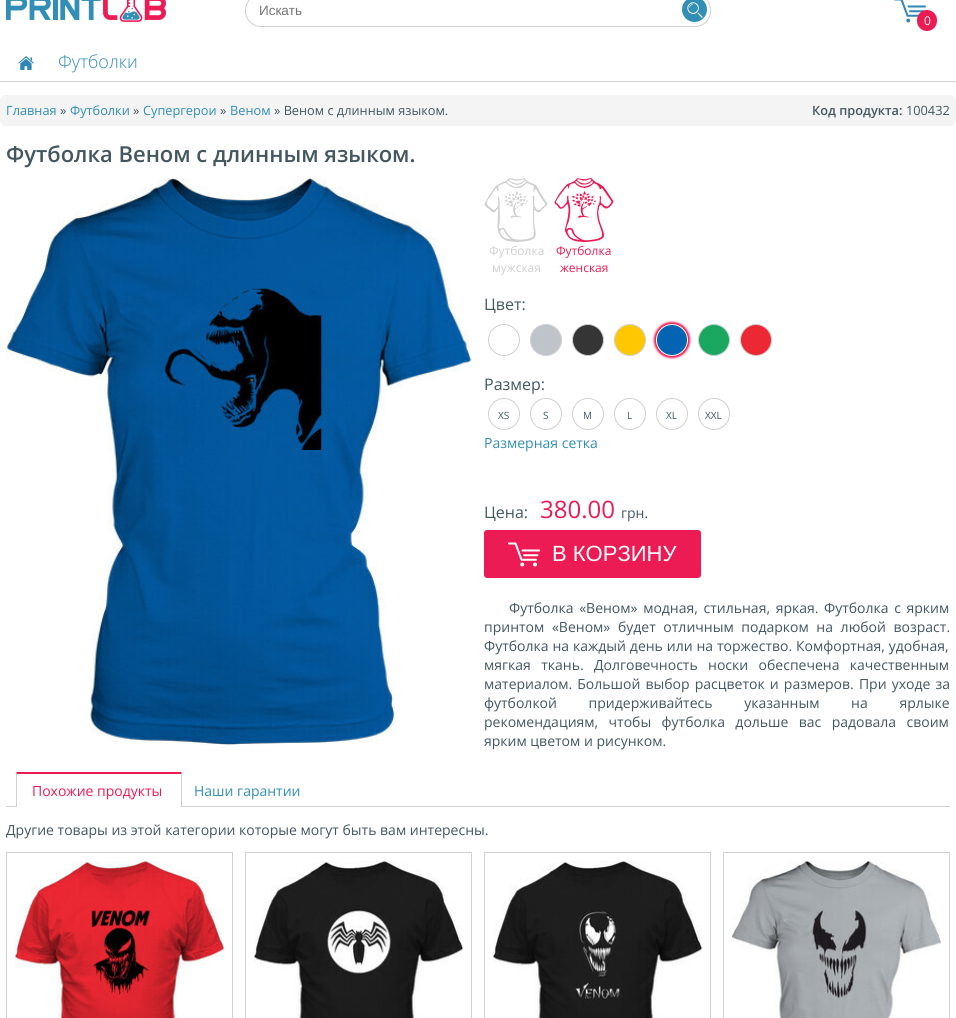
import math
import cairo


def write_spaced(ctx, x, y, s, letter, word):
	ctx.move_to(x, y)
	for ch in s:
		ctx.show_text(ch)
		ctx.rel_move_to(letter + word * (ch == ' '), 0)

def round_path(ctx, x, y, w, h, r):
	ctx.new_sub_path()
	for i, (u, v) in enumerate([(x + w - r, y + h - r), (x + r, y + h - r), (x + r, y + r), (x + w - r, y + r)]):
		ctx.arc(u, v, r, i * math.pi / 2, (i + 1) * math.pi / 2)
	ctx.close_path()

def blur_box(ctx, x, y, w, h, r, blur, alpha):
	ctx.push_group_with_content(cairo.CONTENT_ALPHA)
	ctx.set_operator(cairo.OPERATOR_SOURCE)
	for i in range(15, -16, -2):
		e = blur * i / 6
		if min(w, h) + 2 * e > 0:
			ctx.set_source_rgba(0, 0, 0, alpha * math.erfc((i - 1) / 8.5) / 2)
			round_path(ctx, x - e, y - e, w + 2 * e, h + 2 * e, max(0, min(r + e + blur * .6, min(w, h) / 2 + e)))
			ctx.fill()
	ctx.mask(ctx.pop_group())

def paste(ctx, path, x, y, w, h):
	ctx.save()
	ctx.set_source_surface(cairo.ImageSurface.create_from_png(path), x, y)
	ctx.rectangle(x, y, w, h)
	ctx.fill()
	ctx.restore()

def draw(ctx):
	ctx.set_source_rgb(1, 1, 1)
	ctx.paint()
	ctx.set_source_rgb(0.816, 0.816, 0.816)
	ctx.rectangle(0, 81, 956, 1)
	ctx.fill()
	paste(ctx, 'media/1.png', 6, 0, 160, 22)
	round_path(ctx, 245.5, -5.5, 465, 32, 15.5)
	ctx.set_line_width(1)
	ctx.stroke()
	ctx.select_font_face('Liberation Sans')
	ctx.set_font_size(13.5)
	ctx.set_source_rgb(0.459, 0.459, 0.459)
	ctx.move_to(259, 15)
	ctx.show_text('Искать')
	ctx.set_source_rgb(0.188, 0.557, 0.718)
	ctx.new_path()
	ctx.arc(694.5, 9.5, 12.5, 0, 2 * math.pi)
	ctx.fill()
	paste(ctx, 'media/2.png', 687, 2, 16, 16)
	paste(ctx, 'media/3.png', 894, 0, 32, 23)
	ctx.set_source_rgb(0.925, 0.106, 0.329)
	round_path(ctx, 917, 10, 20, 21, 10)
	ctx.fill()
	ctx.select_font_face('Open Sans')
	ctx.set_font_size(12)
	ctx.set_source_rgb(1, 1, 1)
	ctx.move_to(924, 25)
	ctx.show_text('0')
	paste(ctx, 'media/4.png', 18, 56, 16, 14)
	ctx.select_font_face('Open Sans Light')
	ctx.set_font_size(18)
	ctx.set_source_rgb(0.188, 0.557, 0.718)
	ctx.move_to(58, 68)
	ctx.show_text('Футболки')
	ctx.set_source_rgb(0.957, 0.957, 0.957)
	round_path(ctx, 0, 95, 956, 31, 6)
	ctx.fill()
	ctx.select_font_face('Open Sans')
	ctx.set_font_size(12.75)
	ctx.set_source_rgb(0.188, 0.557, 0.718)
	ctx.move_to(6, 115)
	ctx.show_text('Главная')
	ctx.set_source_rgb(0.263, 0.341, 0.38)
	ctx.move_to(60, 115)
	ctx.show_text('»')
	ctx.set_source_rgb(0.188, 0.557, 0.718)
	ctx.move_to(70, 115)
	ctx.show_text('Футболки')
	ctx.set_source_rgb(0.263, 0.341, 0.38)
	ctx.move_to(133, 115)
	ctx.show_text('»')
	ctx.set_source_rgb(0.188, 0.557, 0.718)
	ctx.move_to(143, 115)
	ctx.show_text('Супергерои')
	ctx.set_source_rgb(0.263, 0.341, 0.38)
	ctx.move_to(220, 115)
	ctx.show_text('»')
	ctx.set_source_rgb(0.188, 0.557, 0.718)
	ctx.move_to(230, 115)
	ctx.show_text('Веном')
	ctx.set_source_rgb(0.263, 0.341, 0.38)
	ctx.move_to(274, 115)
	ctx.show_text('» Веном с длинным языком.')
	ctx.select_font_face('Open Sans SemiBold')
	ctx.move_to(812, 115)
	ctx.show_text('Код продукта:')
	ctx.select_font_face('Open Sans')
	ctx.move_to(906, 115)
	ctx.show_text('100432')
	ctx.select_font_face('Open Sans SemiBold')
	ctx.set_font_size(22)
	ctx.move_to(6, 162)
	ctx.show_text('Футболка Веном с длинным языком.')
	paste(ctx, 'media/5.png', 6, 178, 466, 567)
	paste(ctx, 'media/6.png', 484, 178, 64, 64)
	ctx.select_font_face('Open Sans')
	ctx.set_font_size(12)
	ctx.set_source_rgb(0.816, 0.816, 0.816)
	ctx.move_to(489, 255)
	ctx.show_text('Футболка')
	ctx.move_to(492, 272)
	ctx.show_text('мужская')
	paste(ctx, 'media/7.png', 554, 178, 60, 64)
	ctx.set_source_rgb(0.925, 0.106, 0.329)
	ctx.move_to(556, 255)
	ctx.show_text('Футболка')
	ctx.move_to(560, 272)
	ctx.show_text('женская')
	ctx.set_font_size(16)
	ctx.set_source_rgb(0.263, 0.341, 0.38)
	ctx.move_to(484, 310)
	ctx.show_text('Цвет:')
	ctx.new_path()
	ctx.arc(504, 340, 15.5, 0, 2 * math.pi)
	ctx.set_source_rgb(0.816, 0.816, 0.816)
	ctx.stroke()
	ctx.set_source_rgb(0.749, 0.769, 0.792)
	ctx.arc(546, 340, 15.5, 0, 2 * math.pi)
	ctx.fill_preserve()
	ctx.set_source_rgb(0.816, 0.816, 0.816)
	ctx.stroke()
	ctx.set_source_rgb(0.208, 0.208, 0.208)
	ctx.arc(588, 340, 15.5, 0, 2 * math.pi)
	ctx.fill_preserve()
	ctx.set_source_rgb(0.816, 0.816, 0.816)
	ctx.stroke()
	ctx.set_source_rgb(1, 0.78, 0)
	ctx.arc(630, 340, 15.5, 0, 2 * math.pi)
	ctx.fill_preserve()
	ctx.set_source_rgb(0.816, 0.816, 0.816)
	ctx.stroke()
	ctx.set_source_rgb(0.925, 0.106, 0.329)
	blur_box(ctx, 654, 322, 36, 36, 18, 1, 1)
	ctx.set_source_rgb(0.016, 0.388, 0.702)
	ctx.arc(672, 340, 15.5, 0, 2 * math.pi)
	ctx.fill_preserve()
	ctx.set_source_rgb(1, 1, 1)
	ctx.stroke()
	ctx.set_source_rgb(0.102, 0.655, 0.373)
	ctx.arc(714, 340, 15.5, 0, 2 * math.pi)
	ctx.fill_preserve()
	ctx.set_source_rgb(0.816, 0.816, 0.816)
	ctx.stroke()
	ctx.set_source_rgb(0.925, 0.157, 0.204)
	ctx.arc(756, 340, 15.5, 0, 2 * math.pi)
	ctx.fill_preserve()
	ctx.set_source_rgb(0.816, 0.816, 0.816)
	ctx.stroke()
	ctx.set_source_rgb(0.263, 0.341, 0.38)
	ctx.move_to(484, 390)
	ctx.show_text('Размер:')
	ctx.new_path()
	ctx.arc(504, 414, 15.5, 0, 2 * math.pi)
	ctx.set_source_rgb(0.816, 0.816, 0.816)
	ctx.stroke()
	ctx.set_font_size(10)
	ctx.set_source_rgb(0.263, 0.341, 0.38)
	ctx.move_to(498, 419)
	ctx.show_text('XS')
	ctx.new_path()
	ctx.arc(546, 414, 15.5, 0, 2 * math.pi)
	ctx.set_source_rgb(0.816, 0.816, 0.816)
	ctx.stroke()
	ctx.set_source_rgb(0.263, 0.341, 0.38)
	ctx.move_to(543, 419)
	ctx.show_text('S')
	ctx.new_path()
	ctx.arc(588, 414, 15.5, 0, 2 * math.pi)
	ctx.set_source_rgb(0.816, 0.816, 0.816)
	ctx.stroke()
	ctx.set_source_rgb(0.263, 0.341, 0.38)
	ctx.move_to(583, 419)
	ctx.show_text('M')
	ctx.new_path()
	ctx.arc(630, 414, 15.5, 0, 2 * math.pi)
	ctx.set_source_rgb(0.816, 0.816, 0.816)
	ctx.stroke()
	ctx.set_source_rgb(0.263, 0.341, 0.38)
	ctx.move_to(627, 419)
	ctx.show_text('L')
	ctx.new_path()
	ctx.arc(672, 414, 15.5, 0, 2 * math.pi)
	ctx.set_source_rgb(0.816, 0.816, 0.816)
	ctx.stroke()
	ctx.set_source_rgb(0.263, 0.341, 0.38)
	ctx.move_to(666, 419)
	ctx.show_text('XL')
	ctx.new_path()
	ctx.arc(714, 414, 15.5, 0, 2 * math.pi)
	ctx.set_source_rgb(0.816, 0.816, 0.816)
	ctx.stroke()
	ctx.set_source_rgb(0.263, 0.341, 0.38)
	ctx.move_to(705, 419)
	ctx.show_text('XXL')
	ctx.set_font_size(14)
	ctx.set_source_rgb(0.188, 0.557, 0.718)
	ctx.move_to(484, 448)
	ctx.show_text('Размерная сетка')
	ctx.set_font_size(16)
	ctx.set_source_rgb(0.263, 0.341, 0.38)
	ctx.move_to(484, 518)
	ctx.show_text('Цена:')
	ctx.set_font_size(24)
	ctx.set_source_rgb(0.925, 0.106, 0.329)
	ctx.move_to(540, 518)
	ctx.show_text('380.00')
	ctx.set_font_size(14)
	ctx.set_source_rgb(0.263, 0.341, 0.38)
	ctx.move_to(621, 518)
	ctx.show_text('грн.')
	ctx.set_source_rgb(0.925, 0.106, 0.329)
	round_path(ctx, 484, 530, 217, 48, 3)
	ctx.fill()
	paste(ctx, 'media/8.png', 508, 542, 32, 25)
	ctx.select_font_face('Liberation Sans')
	ctx.set_font_size(22)
	ctx.set_source_rgb(1, 1, 1)
	ctx.move_to(552, 561)
	ctx.show_text('В КОРЗИНУ')
	ctx.select_font_face('Open Sans')
	ctx.set_font_size(14)
	ctx.set_source_rgb(0.263, 0.341, 0.38)
	write_spaced(ctx, 509, 613, 'Футболка «Веном» модная, стильная, яркая. Футболка с ярким', 0, 2)
	write_spaced(ctx, 484, 632, 'принтом «Веном» будет отличным подарком на любой возраст.', 0, 4)
	write_spaced(ctx, 484, 651, 'Футболка на каждый день или на торжество. Комфортная, удобная,', 0, 0.25)
	write_spaced(ctx, 484, 670, 'мягкая ткань. Долговечность носки обеспечена качественным', 0, 6.75)
	write_spaced(ctx, 484, 689, 'материалом. Большой выбор расцветок и размеров. При уходе за', 0, 1.5)
	write_spaced(ctx, 484, 708, 'футболкой придерживайтесь указанным на ярлыке', 0, 28)
	write_spaced(ctx, 484, 727, 'рекомендациям, чтобы футболка дольше вас радовала своим', 0, 6.75)
	ctx.move_to(484, 746)
	ctx.show_text('ярким цветом и рисунком.')
	ctx.set_source_rgb(0.816, 0.816, 0.816)
	ctx.rectangle(6, 806, 944, 1)
	ctx.fill()
	ctx.set_source_rgb(0.925, 0.106, 0.329)
	ctx.move_to(32, 796)
	ctx.show_text('Похожие продукты')
	ctx.set_source_rgb(1, 1, 1)
	ctx.rectangle(16, 806, 166, 1)
	ctx.fill()
	ctx.set_source_rgb(0.925, 0.106, 0.329)
	ctx.new_path()
	ctx.move_to(16, 772)
	ctx.line_to(182, 772)
	ctx.line_to(181, 774)
	ctx.line_to(17, 774)
	ctx.close_path()
	ctx.fill()
	ctx.set_source_rgb(0.816, 0.816, 0.816)
	ctx.new_path()
	ctx.move_to(182, 772)
	ctx.line_to(182, 807)
	ctx.line_to(181, 807)
	ctx.line_to(181, 774)
	ctx.close_path()
	ctx.fill()
	ctx.new_path()
	ctx.move_to(16, 807)
	ctx.line_to(16, 772)
	ctx.line_to(17, 774)
	ctx.line_to(17, 807)
	ctx.close_path()
	ctx.fill()
	ctx.set_source_rgb(0.188, 0.557, 0.718)
	ctx.move_to(194, 796)
	ctx.show_text('Наши гарантии')
	ctx.set_source_rgb(0.263, 0.341, 0.38)
	ctx.move_to(6, 835)
	ctx.show_text('Другие товары из этой категории которые могут быть вам интересны.')
	ctx.rectangle(6.5, 852.5, 226, 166)
	ctx.set_source_rgb(0.816, 0.816, 0.816)
	ctx.stroke()
	paste(ctx, 'media/9.png', 15, 861, 209, 157)
	ctx.rectangle(245.5, 852.5, 226, 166)
	ctx.stroke()
	paste(ctx, 'media/10.png', 254, 861, 209, 157)
	ctx.rectangle(484.5, 852.5, 226, 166)
	ctx.stroke()
	paste(ctx, 'media/11.png', 493, 861, 209, 157)
	ctx.rectangle(723.5, 852.5, 226, 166)
	ctx.stroke()
	paste(ctx, 'media/12.png', 732, 861, 209, 157)


surface = cairo.ImageSurface(cairo.FORMAT_RGB24, 956, 1018)
ctx = cairo.Context(surface)
options = cairo.FontOptions()
options.set_hint_metrics(cairo.HINT_METRICS_OFF)
options.set_hint_style(cairo.HINT_STYLE_NONE)
ctx.set_font_options(options)
ctx.set_miter_limit(4)
draw(ctx)
surface.write_to_png('image.png')
